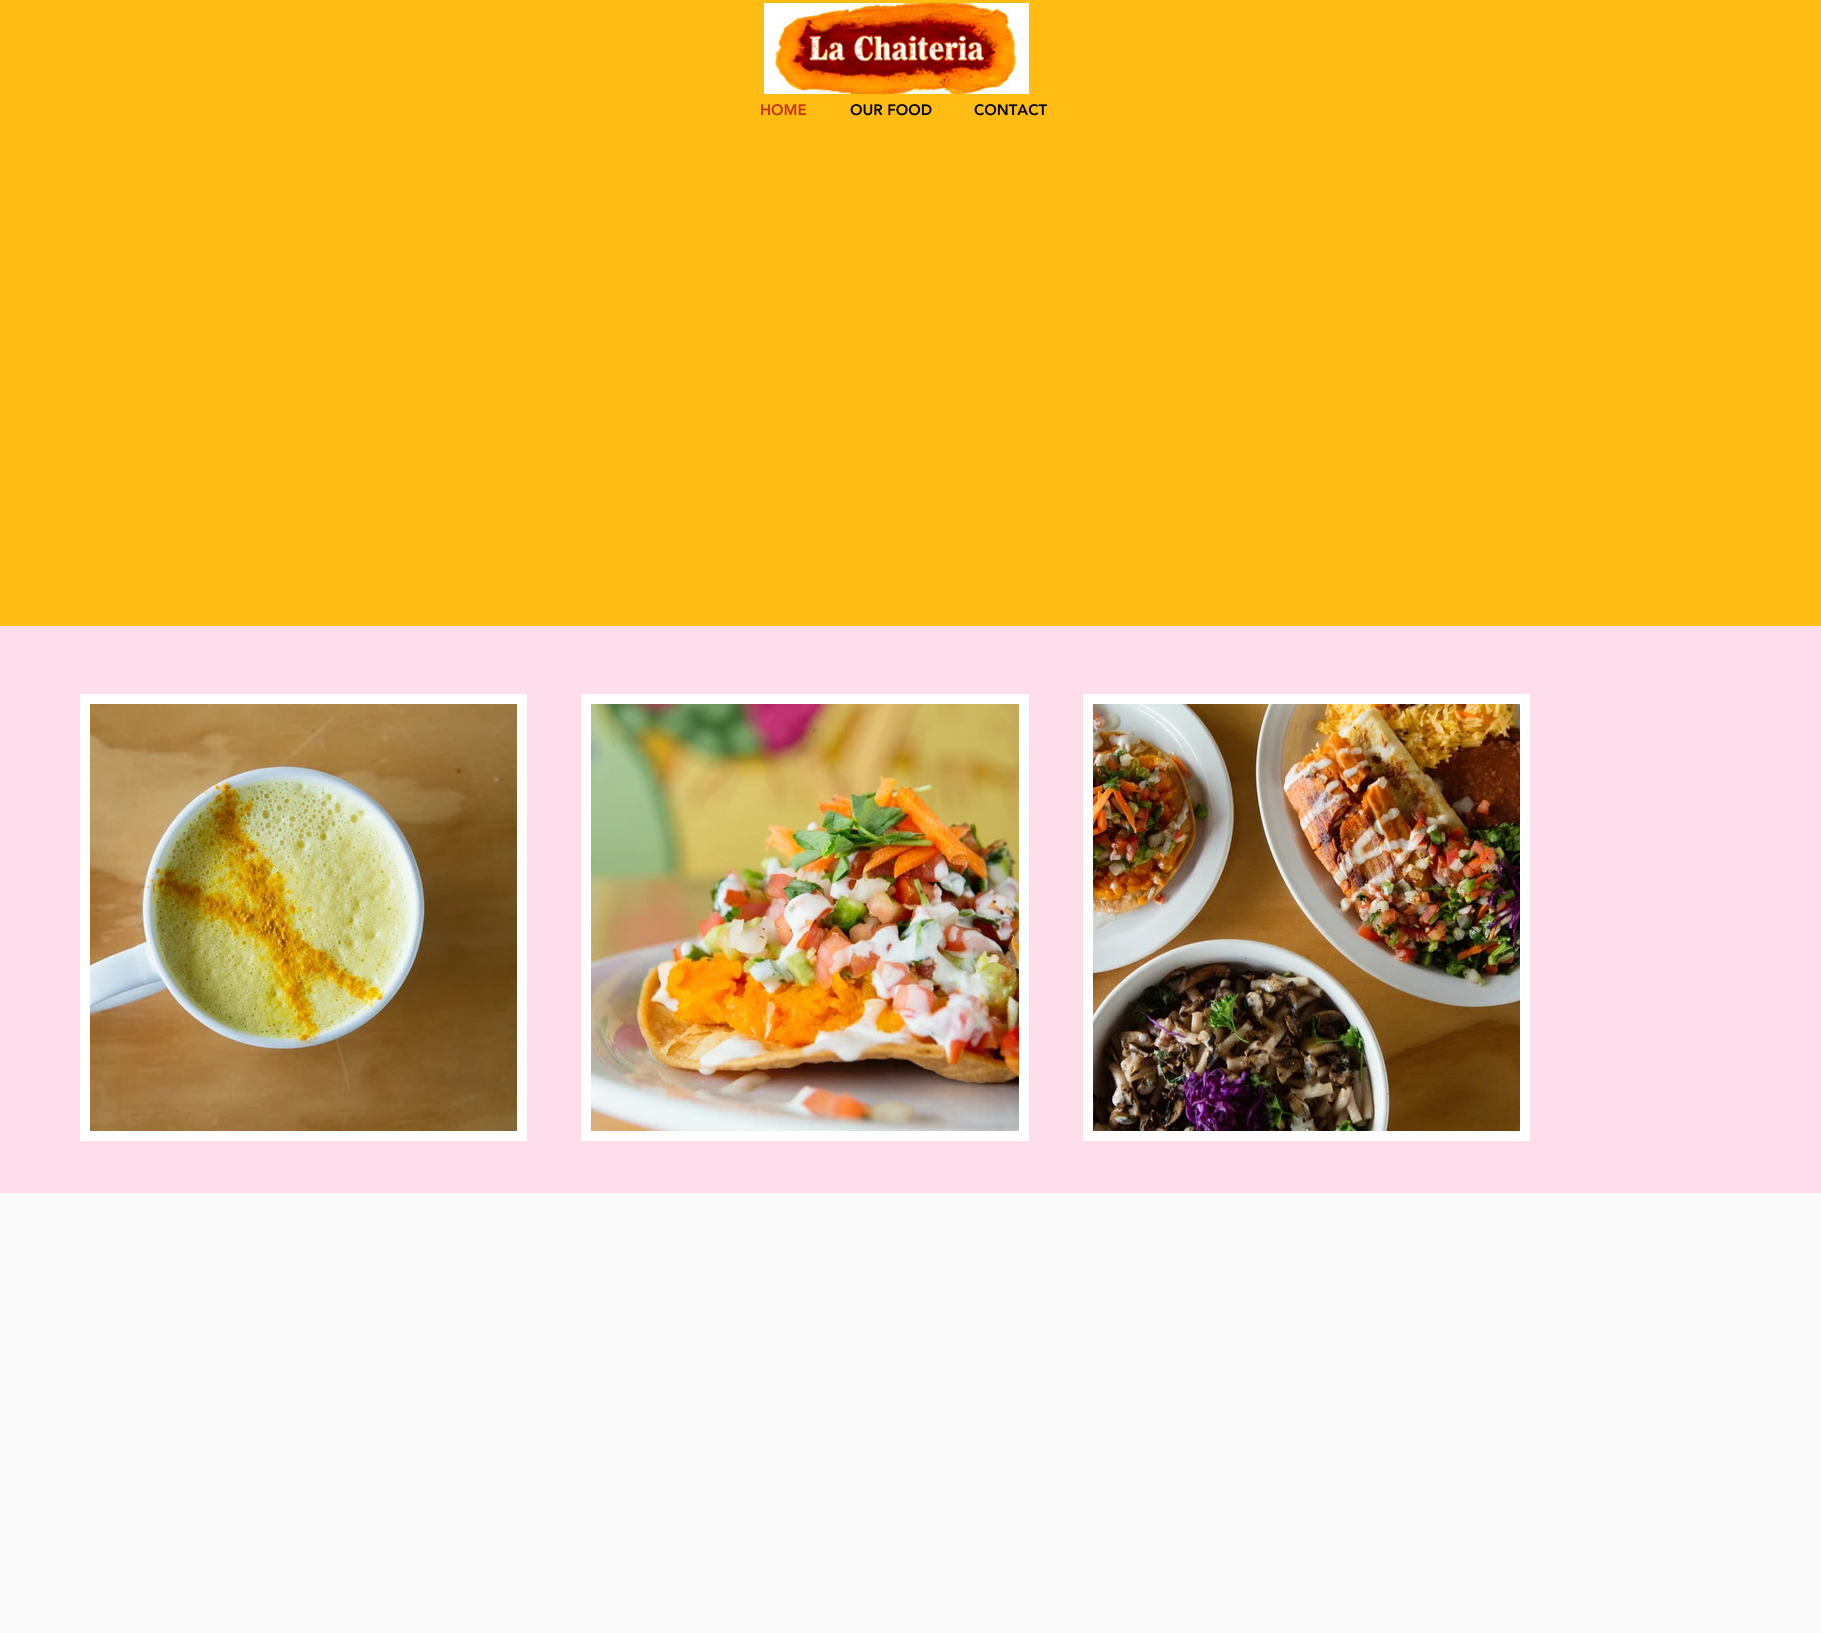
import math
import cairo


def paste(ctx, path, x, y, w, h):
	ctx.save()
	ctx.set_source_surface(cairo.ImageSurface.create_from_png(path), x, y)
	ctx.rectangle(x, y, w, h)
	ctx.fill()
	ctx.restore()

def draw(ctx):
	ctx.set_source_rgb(1, 0.741, 0.078)
	ctx.paint()
	paste(ctx, 'media/1.png', 764, 3, 265, 91)
	ctx.select_font_face('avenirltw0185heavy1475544 Black')
	ctx.set_font_size(15)
	ctx.set_source_rgb(0.78, 0.18, 0)
	ctx.move_to(760, 115)
	ctx.show_text('HOME')
	ctx.set_source_rgb(0, 0, 0)
	ctx.move_to(850, 115)
	ctx.show_text('OUR FOOD')
	ctx.move_to(974, 115)
	ctx.show_text('CONTACT')
	ctx.set_source_rgb(1, 0.871, 0.918)
	ctx.rectangle(0, 626, 1821, 567)
	ctx.fill()
	ctx.rectangle(85, 699, 437, 437)
	ctx.set_source_rgb(1, 1, 1)
	ctx.set_line_width(10)
	ctx.stroke()
	paste(ctx, 'media/2.png', 90, 704, 427, 427)
	ctx.rectangle(586, 699, 438, 437)
	ctx.stroke()
	paste(ctx, 'media/3.png', 591, 704, 428, 427)
	ctx.rectangle(1088, 699, 437, 437)
	ctx.stroke()
	paste(ctx, 'media/4.png', 1093, 704, 427, 427)
	ctx.set_source_rgb(0.98, 0.98, 0.98)
	ctx.rectangle(0, 1193, 1821, 440)
	ctx.fill()


surface = cairo.ImageSurface(cairo.FORMAT_RGB24, 1821, 1633)
ctx = cairo.Context(surface)
options = cairo.FontOptions()
options.set_hint_metrics(cairo.HINT_METRICS_OFF)
options.set_hint_style(cairo.HINT_STYLE_NONE)
ctx.set_font_options(options)
ctx.set_miter_limit(4)
draw(ctx)
surface.write_to_png('image.png')
